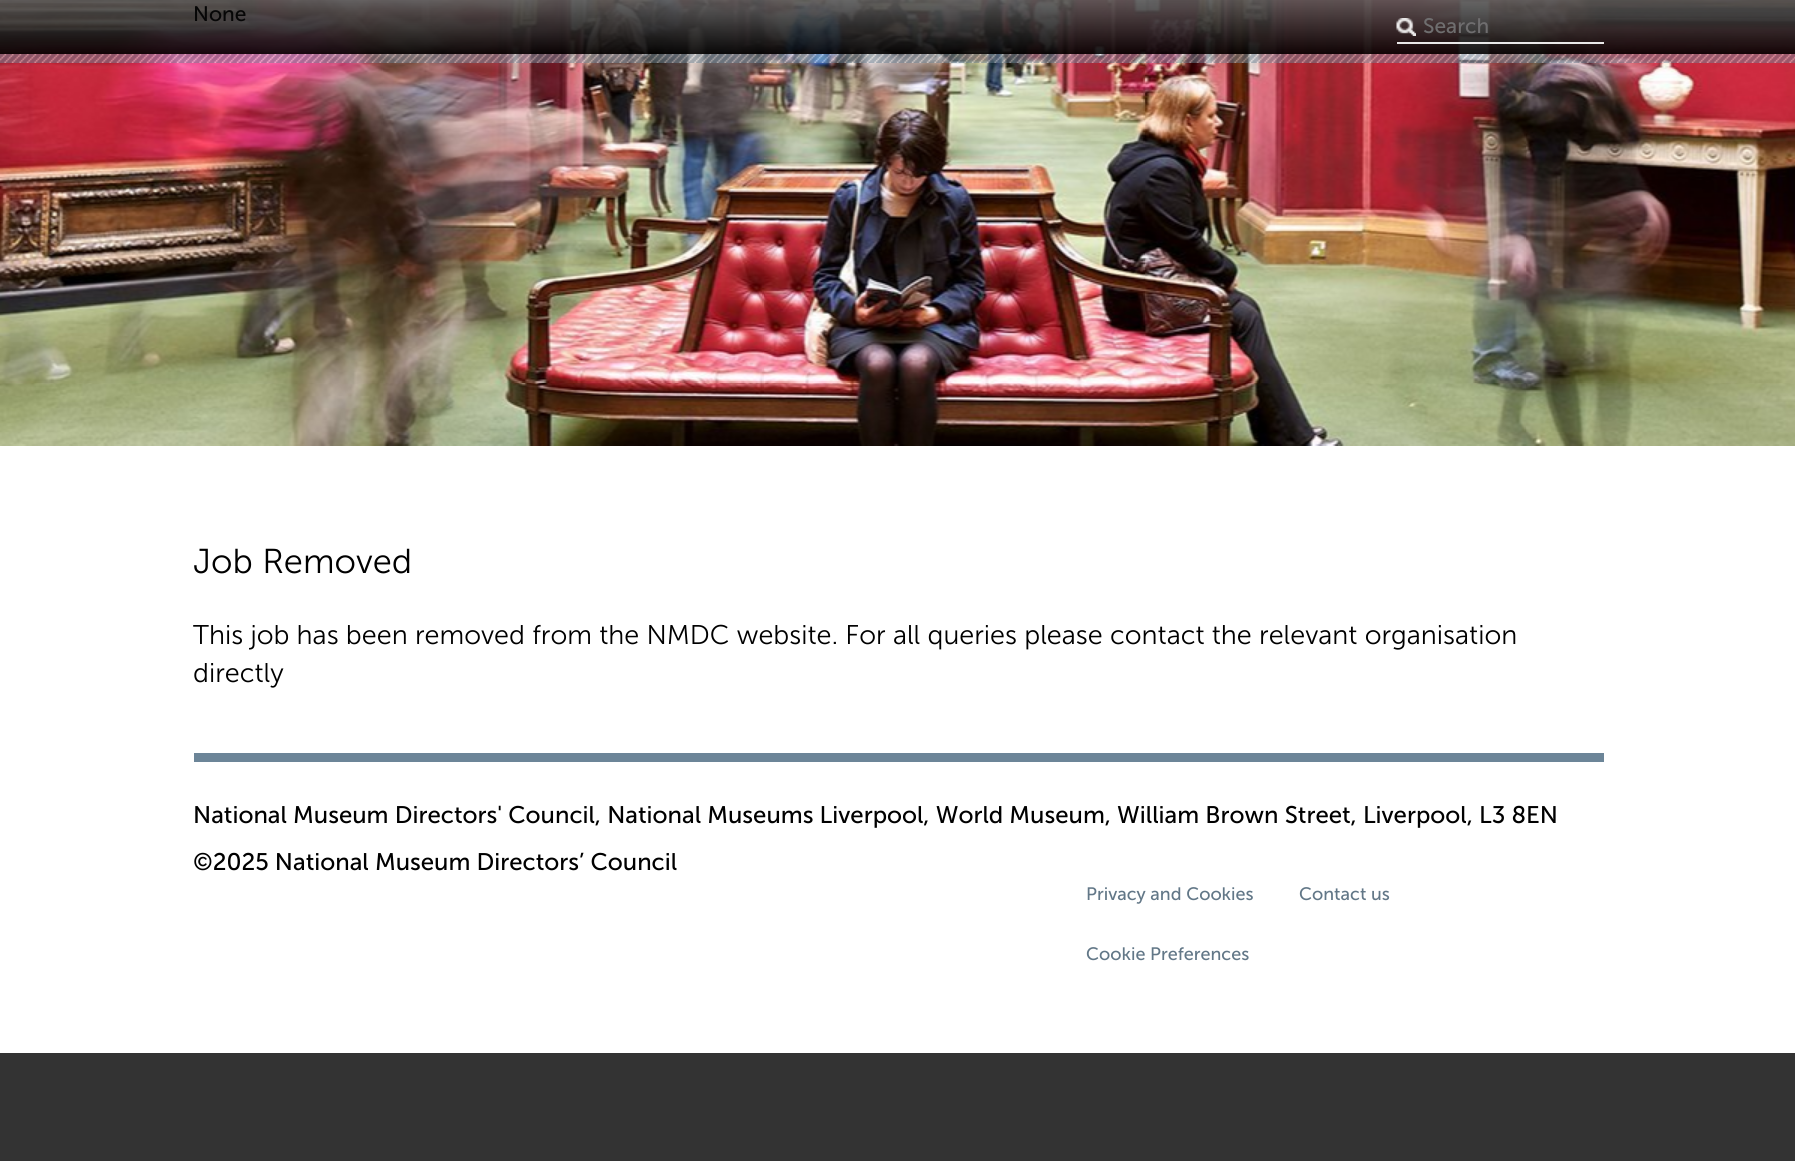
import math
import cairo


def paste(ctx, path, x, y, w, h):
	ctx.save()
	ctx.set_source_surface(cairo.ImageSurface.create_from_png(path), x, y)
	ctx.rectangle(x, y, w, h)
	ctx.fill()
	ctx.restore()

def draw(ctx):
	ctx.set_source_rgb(0.2, 0.2, 0.2)
	ctx.paint()
	ctx.set_source_rgb(1, 1, 1)
	ctx.rectangle(0, 446, 1795, 607)
	ctx.fill()
	paste(ctx, 'media/1.png', 0, 0, 1795, 446)
	ctx.select_font_face('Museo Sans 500')
	ctx.set_font_size(21)
	ctx.set_source_rgb(0.027, 0.027, 0.024)
	ctx.move_to(193, 21)
	ctx.show_text('None')
	paste(ctx, 'media/2.png', 1396, 18, 20, 18)
	ctx.set_source_rgba(1, 1, 1, 0.9)
	ctx.rectangle(1397, 42, 207, 2)
	ctx.fill()
	ctx.set_source_rgb(0.435, 0.431, 0.435)
	ctx.move_to(1423, 33)
	ctx.show_text('Search')
	paste(ctx, 'media/3.png', 0, 54, 1795, 9)
	ctx.select_font_face('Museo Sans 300 Light')
	ctx.set_font_size(34.5)
	ctx.set_source_rgb(0, 0, 0)
	ctx.move_to(193, 573)
	ctx.show_text('Job Removed')
	ctx.set_font_size(27)
	ctx.move_to(193, 644)
	ctx.show_text('This job has been removed from the NMDC website. For all queries please contact the relevant organisation')
	ctx.move_to(193, 682)
	ctx.show_text('directly')
	ctx.set_source_rgb(0.424, 0.522, 0.596)
	ctx.rectangle(194, 753, 1410, 9)
	ctx.fill()
	ctx.select_font_face('Museo Sans 500')
	ctx.set_font_size(24)
	ctx.set_source_rgb(0, 0, 0)
	ctx.move_to(193, 823)
	ctx.show_text('National Museum Directors\' Council, National Museums Liverpool, World Museum, William Brown Street, Liverpool, L3 8EN')
	ctx.move_to(193, 870)
	ctx.show_text('©2025 National Museum Directors’ Council')
	ctx.set_font_size(18)
	ctx.set_source_rgb(0.384, 0.467, 0.529)
	for x, y, s in [
		(1086, 900, 'Privacy and Cookies'),
		(1299, 900, 'Contact us'),
		(1086, 960, 'Cookie Preferences'),
	]:
		ctx.move_to(x, y)
		ctx.show_text(s)


surface = cairo.ImageSurface(cairo.FORMAT_RGB24, 1795, 1161)
ctx = cairo.Context(surface)
options = cairo.FontOptions()
options.set_hint_metrics(cairo.HINT_METRICS_OFF)
options.set_hint_style(cairo.HINT_STYLE_NONE)
ctx.set_font_options(options)
ctx.set_miter_limit(4)
draw(ctx)
surface.write_to_png('image.png')
